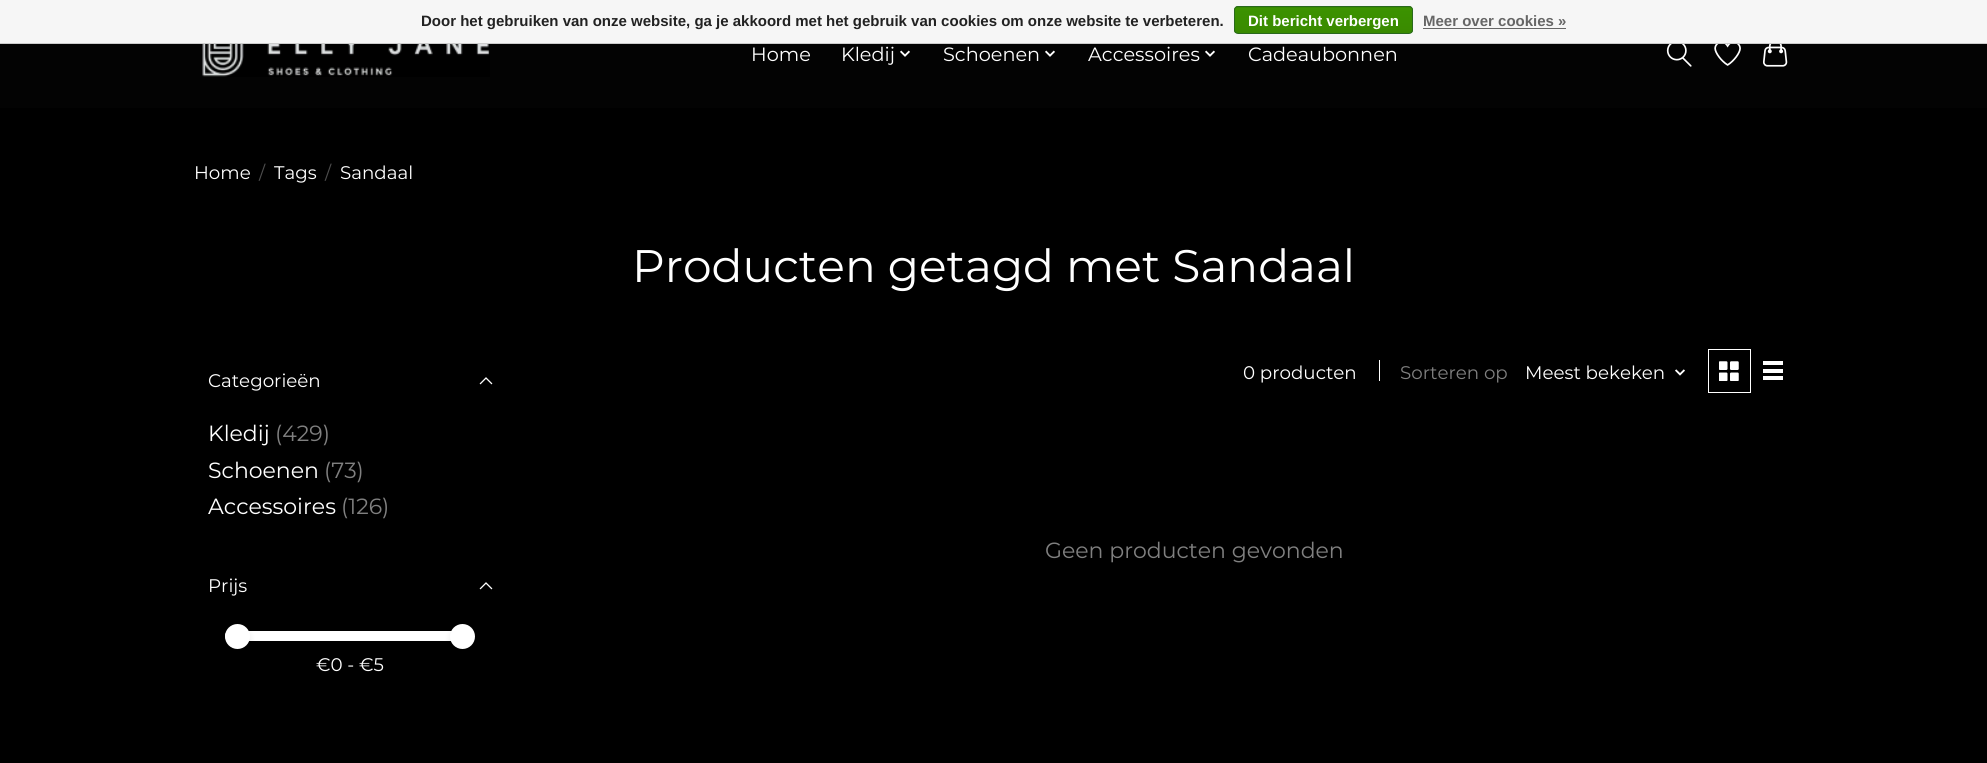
import math
import cairo


def round_path(ctx, x, y, w, h, r):
	ctx.new_sub_path()
	for i, (u, v) in enumerate([(x + w - r, y + h - r), (x + r, y + h - r), (x + r, y + r), (x + w - r, y + r)]):
		ctx.arc(u, v, r, i * math.pi / 2, (i + 1) * math.pi / 2)
	ctx.close_path()

def blur_box(ctx, x, y, w, h, r, blur, alpha):
	ctx.push_group_with_content(cairo.CONTENT_ALPHA)
	ctx.set_operator(cairo.OPERATOR_SOURCE)
	for i in range(15, -16, -2):
		e = blur * i / 6
		if min(w, h) + 2 * e > 0:
			ctx.set_source_rgba(0, 0, 0, alpha * math.erfc((i - 1) / 8.5) / 2)
			round_path(ctx, x - e, y - e, w + 2 * e, h + 2 * e, max(0, min(r + e + blur * .6, min(w, h) / 2 + e)))
			ctx.fill()
	ctx.mask(ctx.pop_group())

def paste(ctx, path, x, y, w, h):
	ctx.save()
	ctx.set_source_surface(cairo.ImageSurface.create_from_png(path), x, y)
	ctx.rectangle(x, y, w, h)
	ctx.fill()
	ctx.restore()

def draw(ctx):
	ctx.set_source_rgb(0, 0, 0)
	ctx.paint()
	ctx.set_source_rgb(0.961, 0.961, 0.961)
	ctx.rectangle(0, 0, 1987, 43)
	ctx.fill()
	ctx.set_source_rgb(0.8, 0.8, 0.8)
	ctx.rectangle(0, 43, 1987, 1)
	ctx.fill()
	ctx.select_font_face('Liberation Sans', cairo.FONT_SLANT_NORMAL, cairo.FONT_WEIGHT_BOLD)
	ctx.set_font_size(15)
	ctx.set_source_rgb(0.133, 0.133, 0.133)
	ctx.move_to(421, 26)
	ctx.show_text('Door het gebruiken van onze website, ga je akkoord met het gebruik van cookies om onze website te verbeteren.')
	ctx.save()
	round_path(ctx, 1234, 6, 179, 28, 4)
	ctx.clip()
	gradient = cairo.LinearGradient(1323, -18, 1323, 7.5)
	gradient.add_color_stop_rgba(0, 0.235, 0.576, 0, 1)
	gradient.add_color_stop_rgba(1, 0.224, 0.541, 0, 1)
	ctx.set_source(gradient)
	ctx.rectangle(1234, 6, 179, 2)
	ctx.fill()
	gradient = cairo.LinearGradient(1323, 7.5, 1323, 33)
	gradient.add_color_stop_rgba(0, 0.235, 0.576, 0, 1)
	gradient.add_color_stop_rgba(1, 0.224, 0.541, 0, 1)
	ctx.set_source(gradient)
	ctx.rectangle(1234, 8, 179, 25)
	ctx.fill()
	ctx.restore()
	round_path(ctx, 1234.5, 6.5, 178, 27, 3.5)
	ctx.set_source_rgb(0.161, 0.412, 0.114)
	ctx.set_line_width(1)
	ctx.stroke()
	ctx.set_source_rgb(1, 1, 1)
	ctx.move_to(1248, 26)
	ctx.show_text('Dit bericht verbergen')
	ctx.set_source_rgb(0.4, 0.4, 0.4)
	ctx.move_to(1423, 26)
	ctx.show_text('Meer over cookies »')
	ctx.rectangle(1423, 28, 143, 1)
	ctx.fill()
	ctx.set_source_rgb(0.012, 0.012, 0.012)
	ctx.rectangle(0, 44, 1987, 64)
	ctx.fill()
	paste(ctx, 'media/1.png', 202, 44, 288, 33)
	ctx.select_font_face('Montserrat')
	ctx.set_font_size(19.25)
	ctx.set_source_rgb(1, 1, 1)
	ctx.move_to(751, 61)
	ctx.show_text('Home')
	ctx.move_to(841, 61)
	ctx.show_text('Kledij')
	paste(ctx, 'media/2.png', 900, 50, 10, 7)
	ctx.move_to(943, 61)
	ctx.show_text('Schoenen')
	paste(ctx, 'media/2.png', 1045, 50, 10, 7)
	ctx.move_to(1088, 61)
	ctx.show_text('Accessoires')
	paste(ctx, 'media/2.png', 1205, 50, 10, 7)
	ctx.move_to(1248, 61)
	ctx.show_text('Cadeaubonnen')
	paste(ctx, 'media/3.png', 1666, 44, 26, 23)
	paste(ctx, 'media/4.png', 1714, 44, 27, 22)
	paste(ctx, 'media/5.png', 1763, 44, 25, 23)
	ctx.set_font_size(18.25)
	ctx.move_to(194, 179)
	ctx.show_text('Home')
	ctx.set_source_rgb(0.302, 0.302, 0.302)
	ctx.move_to(259, 179)
	ctx.show_text('/')
	ctx.set_source_rgb(1, 1, 1)
	ctx.move_to(274, 179)
	ctx.show_text('Tags')
	ctx.set_source_rgb(0.302, 0.302, 0.302)
	ctx.move_to(325, 179)
	ctx.show_text('/')
	ctx.set_source_rgb(1, 1, 1)
	ctx.move_to(340, 179)
	ctx.show_text('Sandaal')
	ctx.set_font_size(45.6)
	ctx.move_to(632, 282)
	ctx.show_text('Producten getagd met Sandaal')
	ctx.set_font_size(18.25)
	ctx.move_to(208, 387)
	ctx.show_text('Categorieën')
	ctx.new_path()
	ctx.move_to(480.5, 383.5)
	ctx.line_to(486, 378)
	ctx.move_to(491.5, 383.5)
	ctx.line_to(486, 378)
	ctx.set_line_width(1.3)
	ctx.set_line_cap(cairo.LINE_CAP_SQUARE)
	ctx.stroke()
	ctx.set_font_size(22)
	ctx.move_to(208, 441)
	ctx.show_text('Kledij')
	ctx.set_source_rgb(0.502, 0.502, 0.502)
	ctx.move_to(275, 441)
	ctx.show_text('(429)')
	ctx.set_source_rgb(1, 1, 1)
	ctx.move_to(208, 478)
	ctx.show_text('Schoenen')
	ctx.set_source_rgb(0.502, 0.502, 0.502)
	ctx.move_to(324, 478)
	ctx.show_text('(73)')
	ctx.set_source_rgb(1, 1, 1)
	ctx.move_to(208, 514)
	ctx.show_text('Accessoires')
	ctx.set_source_rgb(0.502, 0.502, 0.502)
	ctx.move_to(341, 514)
	ctx.show_text('(126)')
	ctx.set_font_size(18.25)
	ctx.set_source_rgb(1, 1, 1)
	ctx.move_to(208, 592)
	ctx.show_text('Prijs')
	ctx.new_path()
	ctx.move_to(480.5, 588.5)
	ctx.line_to(486, 583)
	ctx.move_to(491.5, 588.5)
	ctx.line_to(486, 583)
	ctx.stroke()
	ctx.new_path()
	ctx.move_to(230, 631)
	ctx.line_to(463, 631)
	ctx.line_to(463, 641)
	ctx.line_to(230, 641)
	ctx.curve_to(227, 641, 225, 639, 225, 636)
	ctx.curve_to(225, 633, 227, 631, 230, 631)
	ctx.close_path()
	ctx.fill()
	ctx.set_source_rgb(0, 0, 0)
	blur_box(ctx, 225, 628, 25, 25, 12.5, 3.5, 0.08)
	ctx.set_source_rgb(1, 1, 1)
	ctx.arc(237.5, 636.5, 12.5, 0, 2 * math.pi)
	ctx.fill()
	ctx.move_to(316, 671)
	ctx.show_text('€0 - €5')
	ctx.set_source_rgb(0, 0, 0)
	blur_box(ctx, 450, 628, 25, 25, 12.5, 3.5, 0.08)
	ctx.set_source_rgb(1, 1, 1)
	ctx.arc(462.5, 636.5, 12.5, 0, 2 * math.pi)
	ctx.fill()
	ctx.move_to(1243, 379)
	ctx.show_text('0 producten')
	ctx.rectangle(1379, 360, 1, 21)
	ctx.fill()
	ctx.set_source_rgb(0.502, 0.502, 0.502)
	ctx.move_to(1400, 379)
	ctx.show_text('Sorteren op')
	ctx.set_source_rgb(1, 1, 1)
	ctx.move_to(1525, 379)
	ctx.show_text('Meest bekeken')
	paste(ctx, 'media/6.png', 1675, 369, 10, 7)
	ctx.rectangle(1708.5, 349.5, 42, 43)
	ctx.set_line_width(1)
	ctx.set_line_cap(cairo.LINE_CAP_BUTT)
	ctx.stroke()
	paste(ctx, 'media/7.png', 1719, 361, 20, 20)
	ctx.rectangle(1763, 361, 20, 4)
	ctx.rectangle(1763, 369, 20, 4)
	ctx.rectangle(1763, 376, 20, 4)
	ctx.fill()
	ctx.set_font_size(22)
	ctx.set_source_rgb(0.502, 0.502, 0.502)
	ctx.move_to(1045, 558)
	ctx.show_text('Geen producten gevonden')


surface = cairo.ImageSurface(cairo.FORMAT_RGB24, 1987, 763)
ctx = cairo.Context(surface)
options = cairo.FontOptions()
options.set_hint_metrics(cairo.HINT_METRICS_OFF)
options.set_hint_style(cairo.HINT_STYLE_NONE)
ctx.set_font_options(options)
ctx.set_miter_limit(4)
draw(ctx)
surface.write_to_png('image.png')
